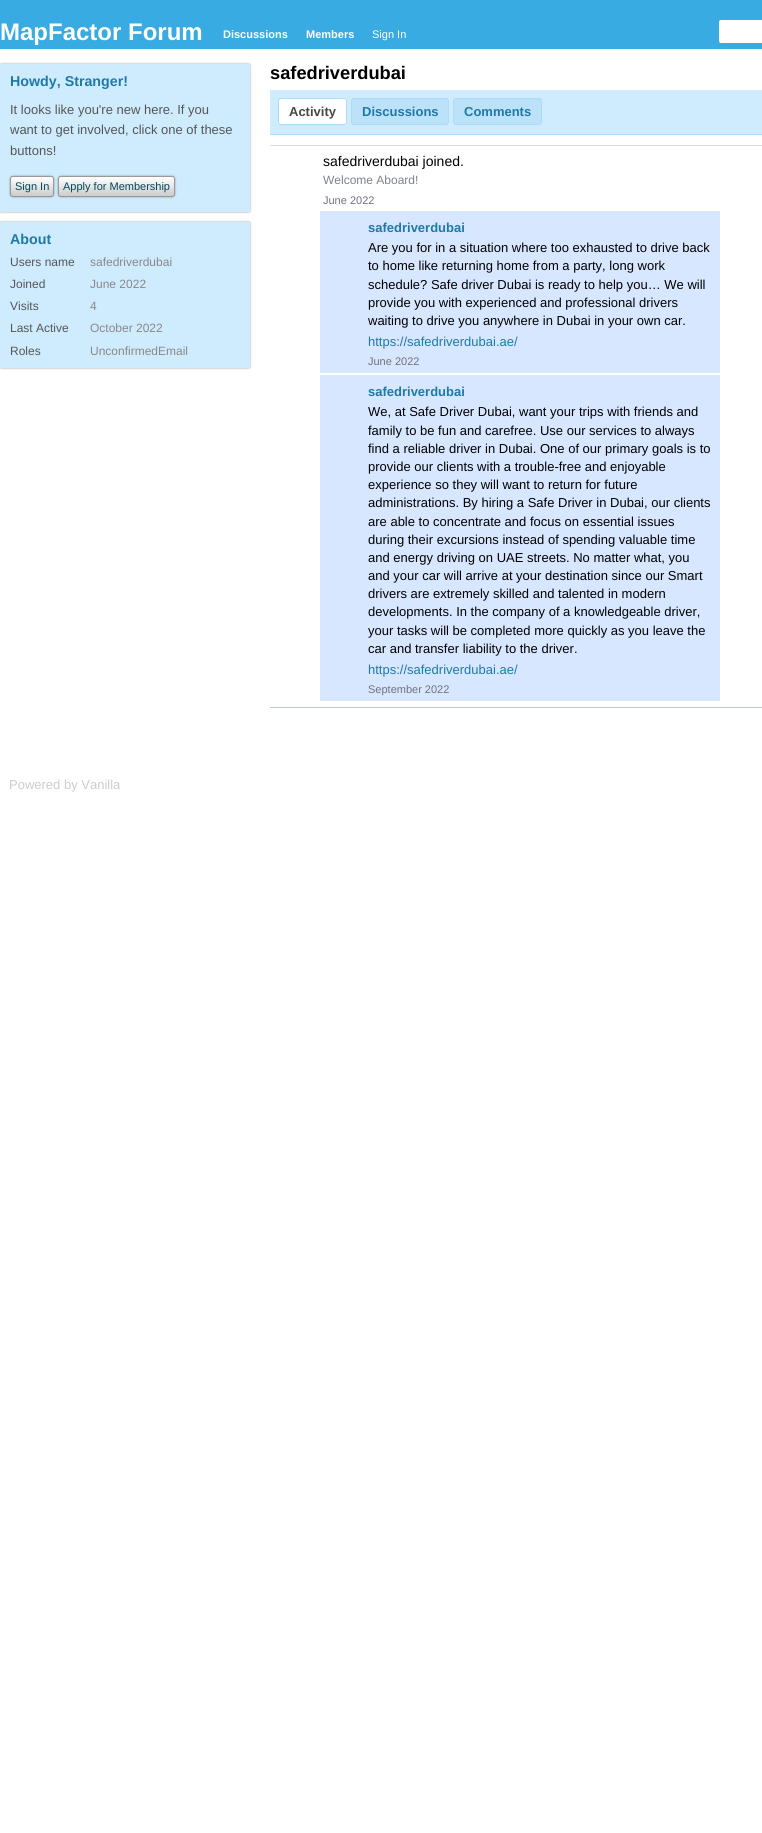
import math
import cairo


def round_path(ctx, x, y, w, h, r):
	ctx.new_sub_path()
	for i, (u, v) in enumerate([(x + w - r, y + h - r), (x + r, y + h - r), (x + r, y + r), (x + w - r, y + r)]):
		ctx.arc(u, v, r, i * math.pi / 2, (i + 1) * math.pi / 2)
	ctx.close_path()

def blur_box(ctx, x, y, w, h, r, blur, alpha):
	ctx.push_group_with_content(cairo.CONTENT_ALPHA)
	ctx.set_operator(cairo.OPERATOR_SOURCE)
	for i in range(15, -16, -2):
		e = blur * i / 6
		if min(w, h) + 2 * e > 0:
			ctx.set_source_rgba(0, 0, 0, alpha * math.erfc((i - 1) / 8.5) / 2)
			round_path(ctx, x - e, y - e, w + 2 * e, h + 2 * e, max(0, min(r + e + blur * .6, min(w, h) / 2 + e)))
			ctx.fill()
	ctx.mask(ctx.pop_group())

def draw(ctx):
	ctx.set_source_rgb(1, 1, 1)
	ctx.paint()
	ctx.set_source_rgb(0.22, 0.671, 0.89)
	ctx.rectangle(0, 0, 762, 49)
	ctx.fill()
	ctx.select_font_face('Liberation Sans', cairo.FONT_SLANT_NORMAL, cairo.FONT_WEIGHT_BOLD)
	ctx.set_font_size(24)
	ctx.set_source_rgb(1, 1, 1)
	ctx.move_to(0, 40)
	ctx.show_text('MapFactor Forum')
	ctx.set_font_size(11)
	ctx.move_to(223, 38)
	ctx.show_text('Discussions')
	ctx.move_to(306, 38)
	ctx.show_text('Members')
	ctx.select_font_face('Liberation Sans')
	ctx.move_to(372, 38)
	ctx.show_text('Sign In')
	round_path(ctx, 719, 20, 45, 23, 2)
	ctx.fill()
	ctx.set_source_rgb(0.6, 0.6, 0.6)
	blur_box(ctx, 0, 64, 250, 148, 1, 1, 1)
	ctx.set_source_rgb(0.812, 0.925, 1)
	round_path(ctx, 0, 64, 250, 148, 1)
	ctx.fill()
	ctx.select_font_face('Liberation Sans', cairo.FONT_SLANT_NORMAL, cairo.FONT_WEIGHT_BOLD)
	ctx.set_font_size(14.25)
	ctx.set_source_rgb(0.118, 0.475, 0.655)
	ctx.move_to(10, 86)
	ctx.show_text('Howdy, Stranger!')
	ctx.select_font_face('Liberation Sans')
	ctx.set_font_size(13)
	ctx.set_source_rgb(0.333, 0.333, 0.333)
	for x, y, s in [
		(10, 114, 'It looks like you\'re new here. If you'),
		(10, 134, 'want to get involved, click one of these'),
		(10, 155, 'buttons!'),
	]:
		ctx.move_to(x, y)
		ctx.show_text(s)
	ctx.set_source_rgb(0.6, 0.6, 0.6)
	blur_box(ctx, 10, 176, 44, 21, 3, 1, 1)
	ctx.save()
	round_path(ctx, 10, 176, 44, 21, 3)
	ctx.clip()
	gradient = cairo.LinearGradient(32, 196, 32, 177)
	gradient.add_color_stop_rgba(0, 0.8, 0.8, 0.8, 1)
	gradient.add_color_stop_rgba(1, 1, 1, 1, 1)
	ctx.set_source(gradient)
	ctx.rectangle(10, 177, 44, 19)
	ctx.fill()
	ctx.restore()
	round_path(ctx, 10.5, 176.5, 43, 20, 2.5)
	ctx.set_source_rgb(0.6, 0.6, 0.6)
	ctx.set_line_width(1)
	ctx.stroke()
	ctx.set_font_size(11)
	ctx.set_source_rgb(0.008, 0.278, 0.353)
	ctx.move_to(15, 190)
	ctx.show_text('Sign In')
	ctx.set_source_rgb(0.6, 0.6, 0.6)
	blur_box(ctx, 58, 176, 117, 21, 3, 1, 1)
	ctx.save()
	round_path(ctx, 58, 176, 117, 21, 3)
	ctx.clip()
	gradient = cairo.LinearGradient(117, 196, 117, 177)
	gradient.add_color_stop_rgba(0, 0.8, 0.8, 0.8, 1)
	gradient.add_color_stop_rgba(1, 1, 1, 1, 1)
	ctx.set_source(gradient)
	ctx.rectangle(58, 177, 117, 19)
	ctx.fill()
	ctx.restore()
	round_path(ctx, 58.5, 176.5, 116, 20, 2.5)
	ctx.set_source_rgb(0.6, 0.6, 0.6)
	ctx.stroke()
	ctx.set_source_rgb(0.008, 0.278, 0.353)
	ctx.move_to(63, 190)
	ctx.show_text('Apply for Membership')
	ctx.set_source_rgb(0.6, 0.6, 0.6)
	blur_box(ctx, 0, 222, 250, 146, 1, 1, 1)
	ctx.set_source_rgb(0.812, 0.925, 1)
	round_path(ctx, 0, 222, 250, 146, 1)
	ctx.fill()
	ctx.select_font_face('Liberation Sans', cairo.FONT_SLANT_NORMAL, cairo.FONT_WEIGHT_BOLD)
	ctx.set_font_size(14.25)
	ctx.set_source_rgb(0.118, 0.475, 0.655)
	ctx.move_to(10, 244)
	ctx.show_text('About')
	ctx.select_font_face('Liberation Sans')
	ctx.set_font_size(12)
	ctx.set_source_rgb(0.333, 0.333, 0.333)
	ctx.move_to(10, 266)
	ctx.show_text('Users name')
	ctx.set_source_rgb(0.533, 0.533, 0.533)
	ctx.move_to(90, 266)
	ctx.show_text('safedriverdubai')
	ctx.set_source_rgb(0.333, 0.333, 0.333)
	ctx.move_to(10, 288)
	ctx.show_text('Joined')
	ctx.set_source_rgb(0.533, 0.533, 0.533)
	ctx.move_to(90, 288)
	ctx.show_text('June 2022')
	ctx.set_source_rgb(0.333, 0.333, 0.333)
	ctx.move_to(10, 310)
	ctx.show_text('Visits')
	ctx.set_source_rgb(0.533, 0.533, 0.533)
	ctx.move_to(90, 310)
	ctx.show_text('4')
	ctx.set_source_rgb(0.333, 0.333, 0.333)
	ctx.move_to(10, 332)
	ctx.show_text('Last Active')
	ctx.set_source_rgb(0.533, 0.533, 0.533)
	ctx.move_to(90, 332)
	ctx.show_text('October 2022')
	ctx.set_source_rgb(0.333, 0.333, 0.333)
	ctx.move_to(10, 355)
	ctx.show_text('Roles')
	ctx.set_source_rgb(0.533, 0.533, 0.533)
	ctx.move_to(90, 355)
	ctx.show_text('UnconfirmedEmail')
	ctx.select_font_face('Liberation Sans', cairo.FONT_SLANT_NORMAL, cairo.FONT_WEIGHT_BOLD)
	ctx.set_font_size(18.25)
	ctx.set_source_rgb(0, 0, 0)
	ctx.move_to(270, 79)
	ctx.show_text('safedriverdubai')
	ctx.set_source_rgb(0.812, 0.925, 1)
	ctx.rectangle(270, 90, 492, 44)
	ctx.fill()
	ctx.set_source_rgb(0.671, 0.855, 0.984)
	ctx.rectangle(270, 134, 492, 1)
	ctx.fill()
	ctx.set_source_rgb(1, 1, 1)
	round_path(ctx, 278.5, 98.5, 68, 26, 2.5)
	ctx.fill_preserve()
	ctx.set_source_rgb(0.671, 0.855, 0.984)
	ctx.stroke()
	ctx.set_font_size(13)
	ctx.set_source_rgb(0.278, 0.278, 0.278)
	ctx.move_to(289, 116)
	ctx.show_text('Activity')
	ctx.set_source_rgb(0.733, 0.886, 0.969)
	round_path(ctx, 351.5, 98.5, 97, 26, 2.5)
	ctx.fill_preserve()
	ctx.set_source_rgb(0.671, 0.855, 0.984)
	ctx.stroke()
	ctx.set_source_rgb(0.118, 0.475, 0.655)
	ctx.move_to(362, 116)
	ctx.show_text('Discussions')
	ctx.set_source_rgb(0.733, 0.886, 0.969)
	round_path(ctx, 453.5, 98.5, 88, 26, 2.5)
	ctx.fill_preserve()
	ctx.set_source_rgb(0.671, 0.855, 0.984)
	ctx.stroke()
	ctx.set_source_rgb(0.118, 0.475, 0.655)
	ctx.move_to(464, 116)
	ctx.show_text('Comments')
	ctx.set_source_rgb(0.867, 0.867, 0.867)
	ctx.rectangle(270, 145, 492, 1)
	ctx.fill()
	ctx.set_source_rgb(0.745, 0.784, 0.8)
	ctx.rectangle(270, 707, 492, 1)
	ctx.fill()
	ctx.select_font_face('Liberation Sans')
	ctx.set_font_size(14)
	ctx.set_source_rgb(0, 0, 0)
	ctx.move_to(323, 166)
	ctx.show_text('safedriverdubai joined.')
	ctx.set_font_size(12)
	ctx.set_source_rgb(0.502, 0.51, 0.549)
	ctx.move_to(323, 184)
	ctx.show_text('Welcome Aboard!')
	ctx.set_font_size(11)
	ctx.set_source_rgb(0.439, 0.447, 0.486)
	ctx.move_to(323, 204)
	ctx.show_text('June 2022')
	ctx.set_source_rgb(0.843, 0.906, 1)
	ctx.rectangle(320, 211, 400, 162)
	ctx.fill()
	ctx.select_font_face('Liberation Sans', cairo.FONT_SLANT_NORMAL, cairo.FONT_WEIGHT_BOLD)
	ctx.set_font_size(13)
	ctx.set_source_rgb(0.118, 0.475, 0.655)
	ctx.move_to(368, 232)
	ctx.show_text('safedriverdubai')
	ctx.select_font_face('Liberation Sans')
	ctx.set_source_rgb(0, 0, 0)
	for x, y, s in [
		(368, 252, 'Are you for in a situation where too exhausted to drive back'),
		(368, 270, 'to home like returning home from a party, long work'),
		(368, 289, 'schedule? Safe driver Dubai is ready to help you… We will'),
		(368, 307, 'provide you with experienced and professional drivers'),
		(368, 325, 'waiting to drive you anywhere in Dubai in your own car.'),
	]:
		ctx.move_to(x, y)
		ctx.show_text(s)
	ctx.set_source_rgb(0.118, 0.475, 0.655)
	ctx.move_to(368, 346)
	ctx.show_text('https://safedriverdubai.ae/')
	ctx.set_font_size(11)
	ctx.set_source_rgb(0.439, 0.447, 0.486)
	ctx.move_to(368, 365)
	ctx.show_text('June 2022')
	ctx.set_source_rgb(0.843, 0.906, 1)
	ctx.rectangle(320, 375, 400, 326)
	ctx.fill()
	ctx.select_font_face('Liberation Sans', cairo.FONT_SLANT_NORMAL, cairo.FONT_WEIGHT_BOLD)
	ctx.set_font_size(13)
	ctx.set_source_rgb(0.118, 0.475, 0.655)
	ctx.move_to(368, 396)
	ctx.show_text('safedriverdubai')
	ctx.select_font_face('Liberation Sans')
	ctx.set_source_rgb(0, 0, 0)
	for x, y, s in [
		(368, 416, 'We, at Safe Driver Dubai, want your trips with friends and'),
		(368, 435, 'family to be fun and carefree. Use our services to always'),
		(368, 453, 'find a reliable driver in Dubai. One of our primary goals is to'),
		(368, 471, 'provide our clients with a trouble-free and enjoyable'),
		(368, 489, 'experience so they will want to return for future'),
		(368, 507, 'administrations. By hiring a Safe Driver in Dubai, our clients'),
		(368, 526, 'are able to concentrate and focus on essential issues'),
		(368, 544, 'during their excursions instead of spending valuable time'),
		(368, 562, 'and energy driving on UAE streets. No matter what, you'),
		(368, 580, 'and your car will arrive at your destination since our Smart'),
		(368, 598, 'drivers are extremely skilled and talented in modern'),
		(368, 616, 'developments. In the company of a knowledgeable driver,'),
		(368, 635, 'your tasks will be completed more quickly as you leave the'),
		(368, 653, 'car and transfer liability to the driver.'),
	]:
		ctx.move_to(x, y)
		ctx.show_text(s)
	ctx.set_source_rgb(0.118, 0.475, 0.655)
	ctx.move_to(368, 674)
	ctx.show_text('https://safedriverdubai.ae/')
	ctx.set_font_size(11)
	ctx.set_source_rgb(0.439, 0.447, 0.486)
	ctx.move_to(368, 693)
	ctx.show_text('September 2022')
	ctx.set_font_size(13)
	ctx.set_source_rgb(0.8, 0.8, 0.8)
	ctx.move_to(9, 789)
	ctx.show_text('Powered by Vanilla')


surface = cairo.ImageSurface(cairo.FORMAT_RGB24, 762, 1833)
ctx = cairo.Context(surface)
options = cairo.FontOptions()
options.set_hint_metrics(cairo.HINT_METRICS_OFF)
options.set_hint_style(cairo.HINT_STYLE_NONE)
ctx.set_font_options(options)
ctx.set_miter_limit(4)
draw(ctx)
surface.write_to_png('image.png')
